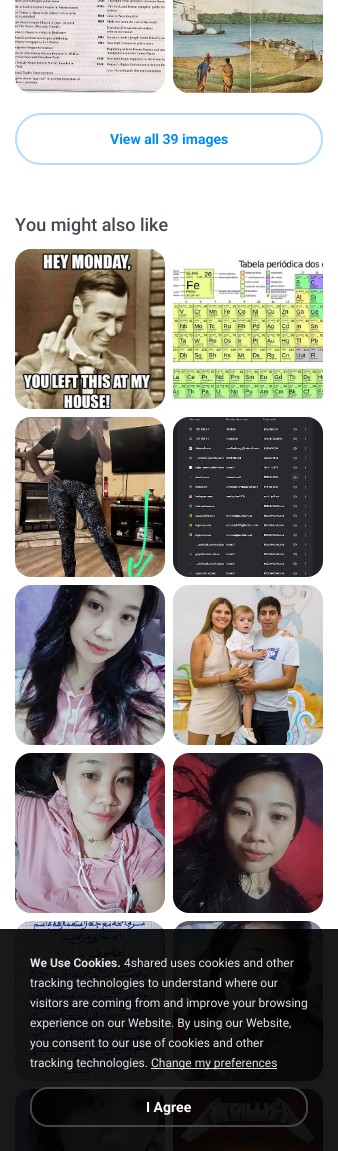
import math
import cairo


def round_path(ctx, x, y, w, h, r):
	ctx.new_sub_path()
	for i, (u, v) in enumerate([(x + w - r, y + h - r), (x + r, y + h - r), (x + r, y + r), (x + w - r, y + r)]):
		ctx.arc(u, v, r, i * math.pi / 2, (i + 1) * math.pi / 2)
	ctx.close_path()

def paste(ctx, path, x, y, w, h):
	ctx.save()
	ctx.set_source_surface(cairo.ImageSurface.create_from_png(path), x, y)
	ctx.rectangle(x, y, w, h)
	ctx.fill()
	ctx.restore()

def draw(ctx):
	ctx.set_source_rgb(1, 1, 1)
	ctx.paint()
	ctx.set_source_rgb(0.961, 0.957, 0.976)
	round_path(ctx, 15, -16, 150, 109, 16)
	ctx.fill()
	paste(ctx, 'media/1.png', 15, 0, 150, 93)
	round_path(ctx, 173, -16, 150, 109, 16)
	ctx.fill()
	paste(ctx, 'media/2.png', 173, 0, 150, 93)
	round_path(ctx, 16, 114, 306, 50, 25)
	ctx.set_source_rgb(0.702, 0.867, 0.992)
	ctx.stroke()
	ctx.select_font_face('Roboto', cairo.FONT_SLANT_NORMAL, cairo.FONT_WEIGHT_BOLD)
	ctx.set_font_size(14)
	ctx.set_source_rgb(0, 0.545, 0.965)
	ctx.move_to(110, 144)
	ctx.show_text('View all 39 images')
	ctx.select_font_face('Roboto Medium')
	ctx.set_font_size(18)
	ctx.set_source_rgb(0.255, 0.282, 0.318)
	ctx.move_to(15, 231)
	ctx.show_text('You might also like')
	ctx.set_source_rgb(0.961, 0.957, 0.976)
	round_path(ctx, 15, 249, 150, 160, 16)
	ctx.fill()
	paste(ctx, 'media/3.png', 15, 249, 150, 160)
	round_path(ctx, 173, 249, 150, 160, 16)
	ctx.fill()
	paste(ctx, 'media/4.png', 173, 249, 150, 160)
	round_path(ctx, 15, 417, 150, 160, 16)
	ctx.fill()
	paste(ctx, 'media/5.png', 15, 417, 150, 160)
	round_path(ctx, 173, 417, 150, 160, 16)
	ctx.fill()
	paste(ctx, 'media/6.png', 173, 417, 150, 160)
	round_path(ctx, 15, 585, 150, 160, 16)
	ctx.fill()
	paste(ctx, 'media/7.png', 15, 585, 150, 160)
	round_path(ctx, 173, 585, 150, 160, 16)
	ctx.fill()
	paste(ctx, 'media/8.png', 173, 585, 150, 160)
	round_path(ctx, 15, 753, 150, 160, 16)
	ctx.fill()
	paste(ctx, 'media/9.png', 15, 753, 150, 160)
	round_path(ctx, 173, 753, 150, 160, 16)
	ctx.fill()
	paste(ctx, 'media/10.png', 173, 753, 150, 160)
	round_path(ctx, 15, 921, 150, 160, 16)
	ctx.fill()
	paste(ctx, 'media/11.png', 15, 921, 150, 160)
	round_path(ctx, 173, 921, 150, 160, 16)
	ctx.fill()
	paste(ctx, 'media/12.png', 173, 921, 150, 160)
	round_path(ctx, 15, 1089, 150, 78, 16)
	ctx.fill()
	paste(ctx, 'media/13.png', 15, 1089, 150, 62)
	round_path(ctx, 173, 1089, 150, 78, 16)
	ctx.fill()
	paste(ctx, 'media/14.png', 173, 1089, 150, 62)
	ctx.set_source_rgba(0, 0, 0, 0.9)
	ctx.rectangle(0, 929, 338, 222)
	ctx.fill()
	ctx.select_font_face('Roboto', cairo.FONT_SLANT_NORMAL, cairo.FONT_WEIGHT_BOLD)
	ctx.set_font_size(12)
	ctx.set_source_rgb(0.886, 0.898, 0.906)
	ctx.move_to(30, 967)
	ctx.show_text('We Use Cookies.')
	ctx.select_font_face('Roboto')
	for x, y, s in [
		(124, 967, '4shared uses cookies and other'),
		(30, 987, 'tracking technologies to understand where our'),
		(30, 1007, 'visitors are coming from and improve your browsing'),
		(30, 1027, 'experience on our Website. By using our Website,'),
		(30, 1047, 'you consent to our use of cookies and other'),
		(30, 1067, 'tracking technologies.'),
	]:
		ctx.move_to(x, y)
		ctx.show_text(s)
	ctx.rectangle(151, 1068, 126, 1)
	ctx.fill()
	ctx.move_to(151, 1067)
	ctx.show_text('Change my preferences')
	round_path(ctx, 31, 1088, 276, 38, 17)
	ctx.set_source_rgb(0.243, 0.275, 0.306)
	ctx.stroke()
	ctx.select_font_face('Roboto', cairo.FONT_SLANT_NORMAL, cairo.FONT_WEIGHT_BOLD)
	ctx.set_font_size(14)
	ctx.set_source_rgb(1, 1, 1)
	ctx.move_to(146, 1112)
	ctx.show_text('I Agree')


surface = cairo.ImageSurface(cairo.FORMAT_RGB24, 338, 1151)
ctx = cairo.Context(surface)
options = cairo.FontOptions()
options.set_hint_metrics(cairo.HINT_METRICS_OFF)
options.set_hint_style(cairo.HINT_STYLE_NONE)
ctx.set_font_options(options)
ctx.set_miter_limit(4)
draw(ctx)
surface.write_to_png('image.png')
